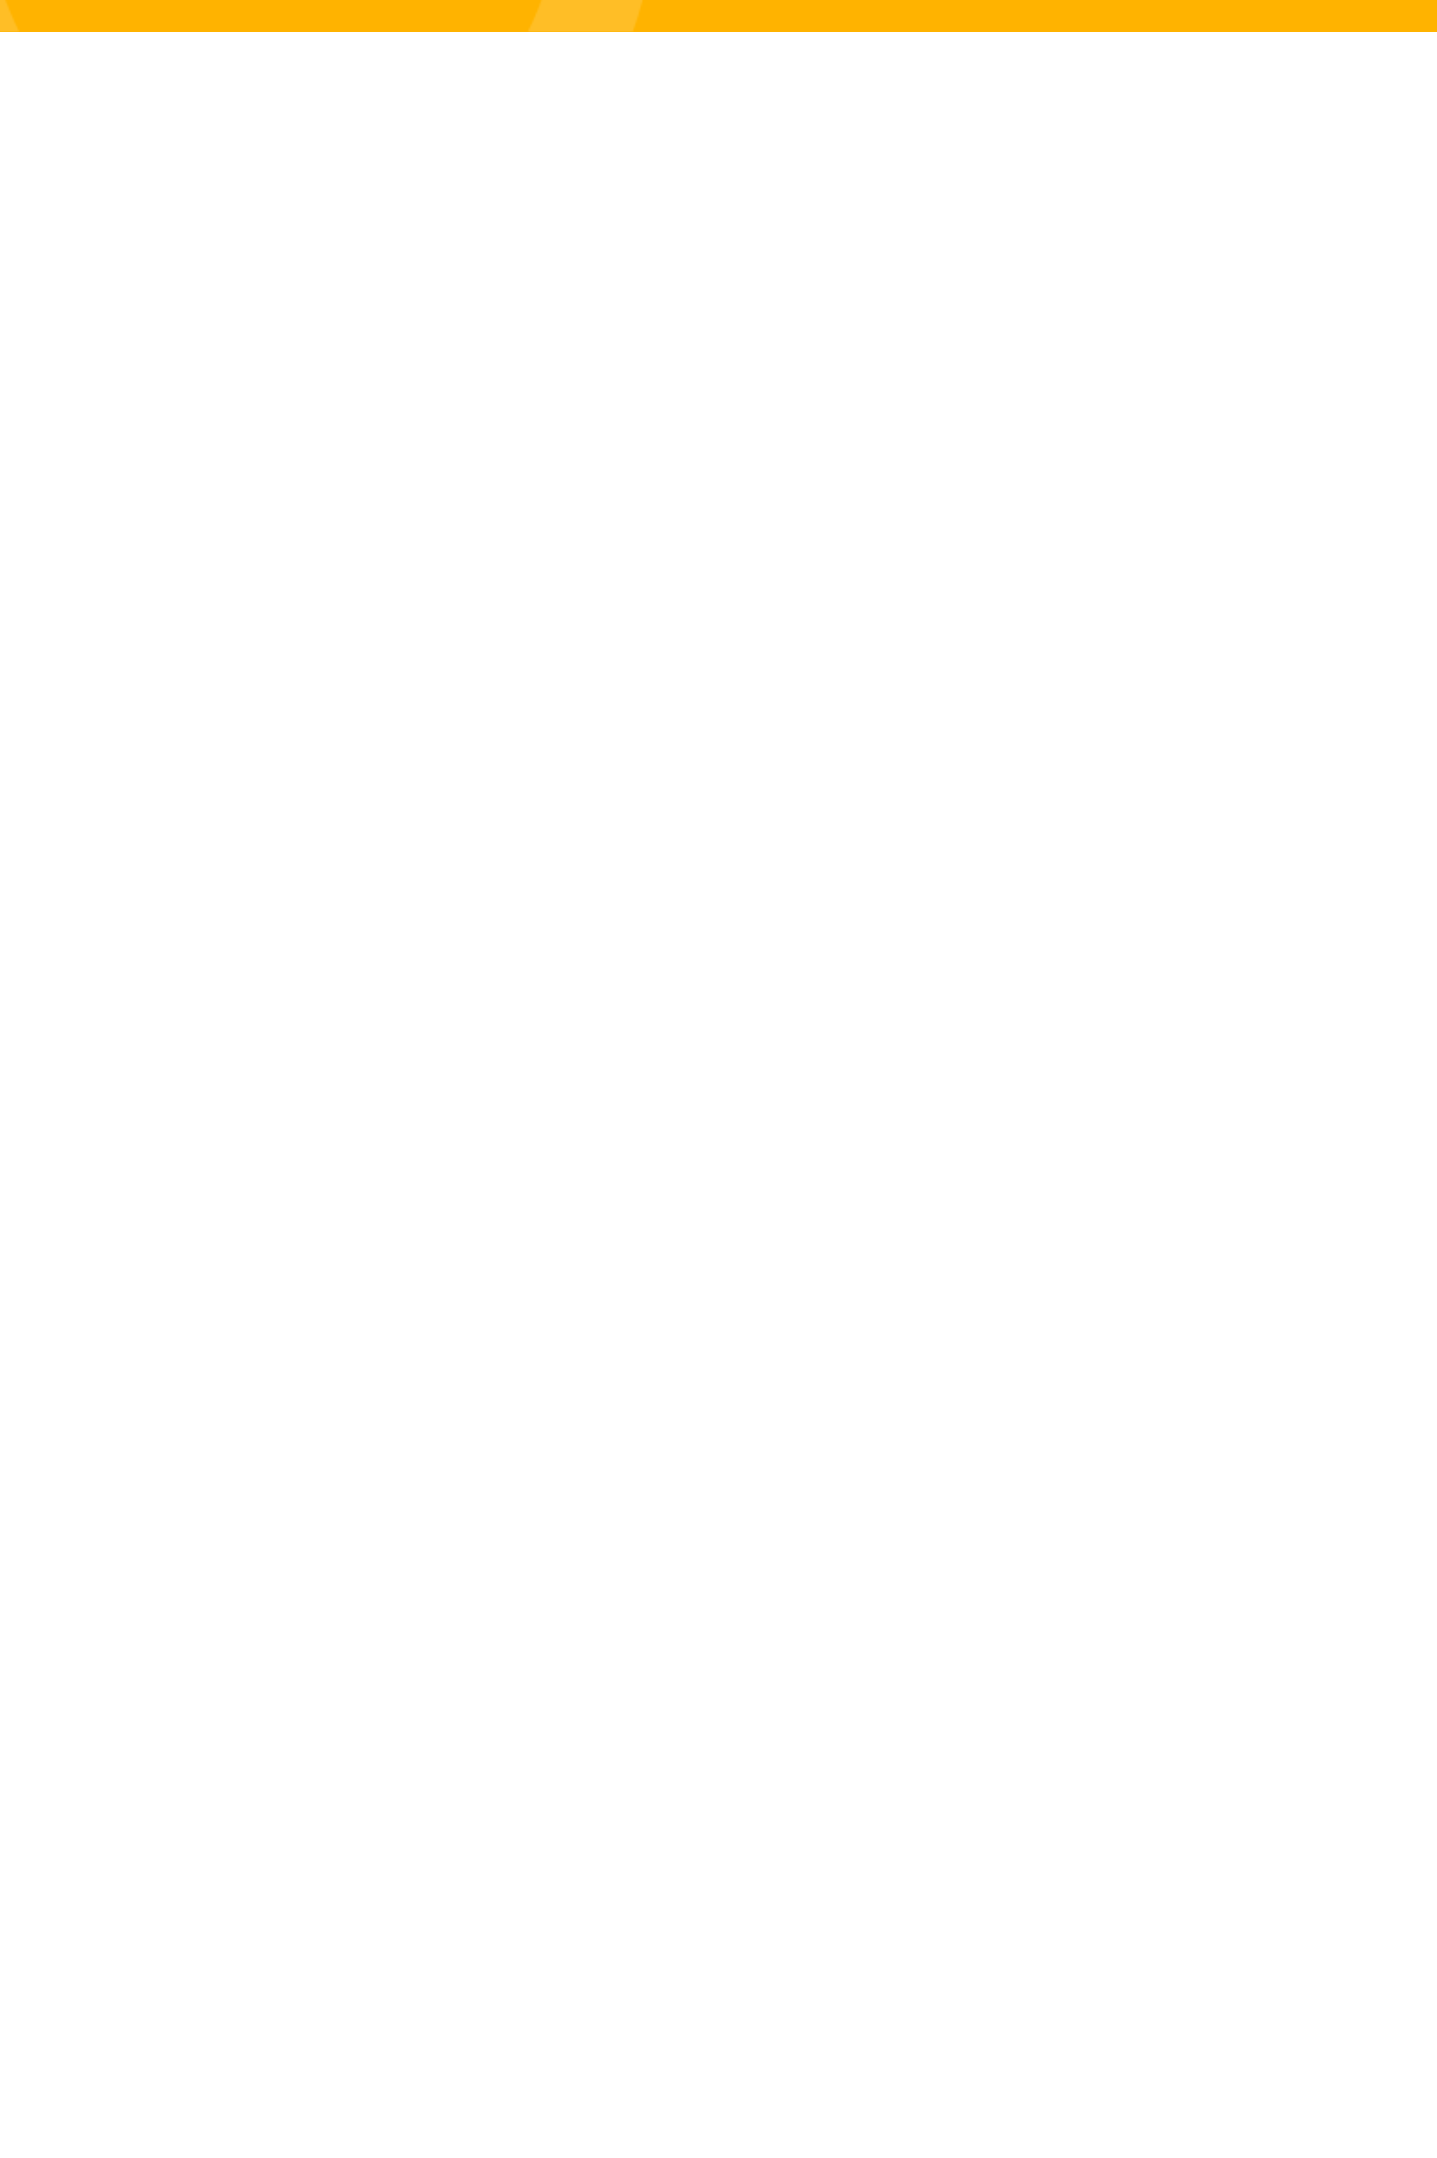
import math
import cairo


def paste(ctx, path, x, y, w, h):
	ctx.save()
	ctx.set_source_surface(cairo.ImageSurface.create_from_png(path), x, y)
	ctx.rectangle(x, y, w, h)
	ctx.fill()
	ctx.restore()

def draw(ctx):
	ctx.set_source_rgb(1, 1, 1)
	ctx.paint()
	ctx.set_source_rgb(1, 0.702, 0)
	ctx.rectangle(0, 0, 1437, 32)
	ctx.fill()
	paste(ctx, 'media/1.png', 0, 0, 643, 32)


surface = cairo.ImageSurface(cairo.FORMAT_RGB24, 1437, 2158)
ctx = cairo.Context(surface)
options = cairo.FontOptions()
options.set_hint_metrics(cairo.HINT_METRICS_OFF)
options.set_hint_style(cairo.HINT_STYLE_NONE)
ctx.set_font_options(options)
ctx.set_miter_limit(4)
draw(ctx)
surface.write_to_png('image.png')
